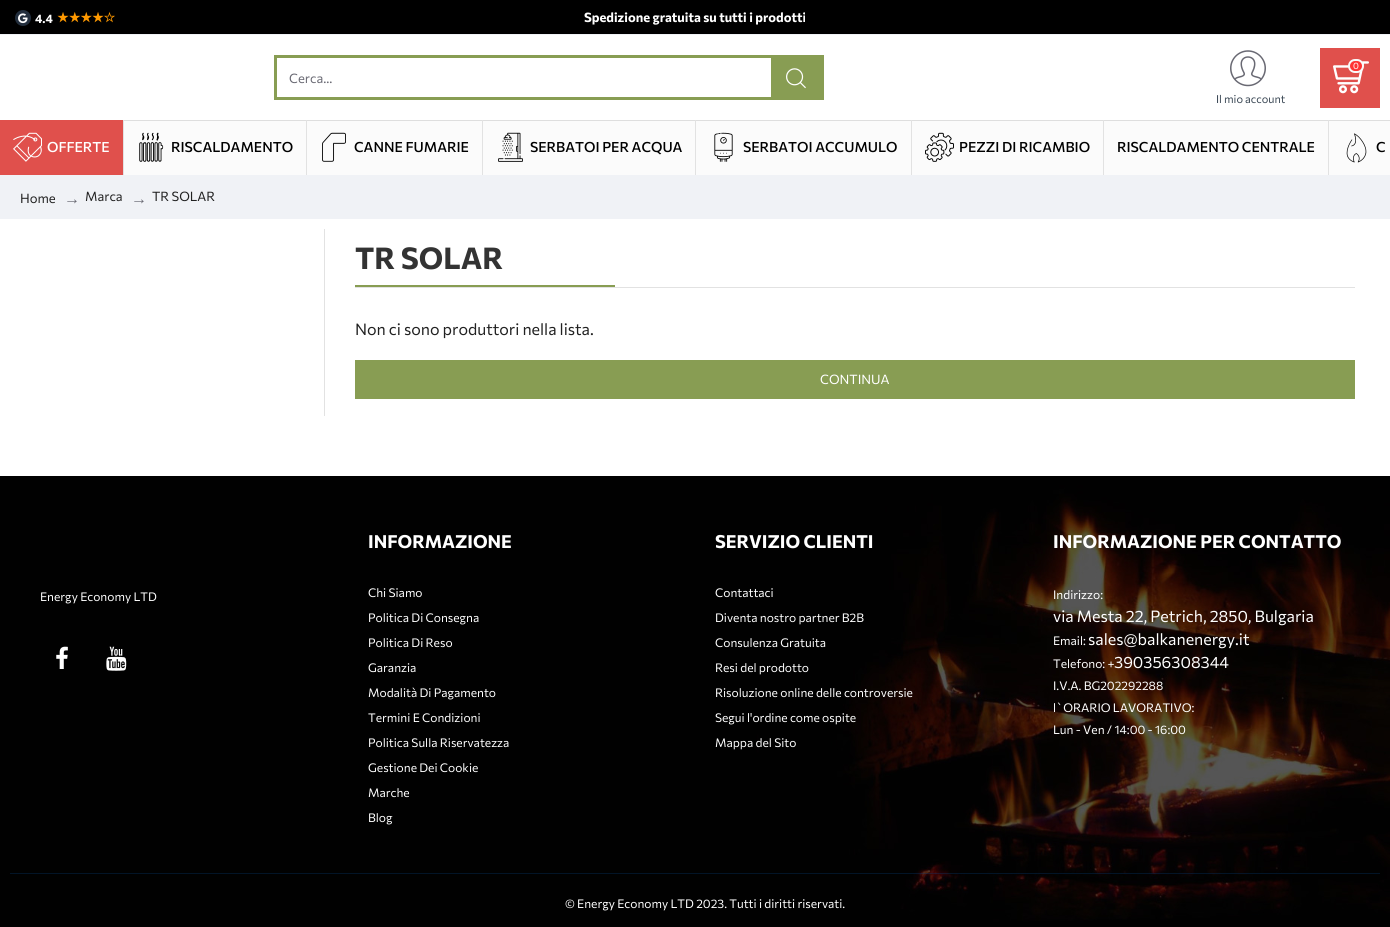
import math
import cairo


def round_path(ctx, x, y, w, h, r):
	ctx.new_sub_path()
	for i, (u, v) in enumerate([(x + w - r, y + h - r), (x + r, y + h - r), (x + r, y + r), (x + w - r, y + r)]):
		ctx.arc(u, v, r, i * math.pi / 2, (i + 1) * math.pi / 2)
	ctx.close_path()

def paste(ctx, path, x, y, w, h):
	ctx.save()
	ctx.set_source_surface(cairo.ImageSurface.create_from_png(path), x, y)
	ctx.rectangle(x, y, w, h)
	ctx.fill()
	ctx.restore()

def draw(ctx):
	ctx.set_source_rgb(1, 1, 1)
	ctx.paint()
	ctx.set_source_rgb(0, 0, 0)
	ctx.rectangle(0, 0, 1390, 34)
	ctx.fill()
	ctx.set_source_rgb(0.941, 0.949, 0.961)
	ctx.rectangle(0, 34, 1390, 1)
	ctx.fill()
	ctx.set_source_rgb(0.137, 0.184, 0.243)
	ctx.arc(23, 18, 8, 0, 2 * math.pi)
	ctx.fill()
	paste(ctx, 'media/1.png', 18, 13, 10, 11)
	ctx.select_font_face('Commissioner', cairo.FONT_SLANT_NORMAL, cairo.FONT_WEIGHT_BOLD)
	ctx.set_font_size(12)
	ctx.set_source_rgb(1, 1, 1)
	ctx.move_to(35, 23)
	ctx.show_text('4.4')
	ctx.select_font_face('DejaVu Sans', cairo.FONT_SLANT_NORMAL, cairo.FONT_WEIGHT_BOLD)
	ctx.set_font_size(13)
	ctx.set_source_rgb(1, 0.6, 0)
	ctx.move_to(57, 22)
	ctx.show_text('★★★★☆')
	ctx.select_font_face('Commissioner', cairo.FONT_SLANT_NORMAL, cairo.FONT_WEIGHT_BOLD)
	ctx.set_source_rgb(1, 1, 1)
	ctx.move_to(584, 22)
	ctx.show_text('Spedizione gratuita su tutti i prodotti')
	ctx.rectangle(275.5, 56.5, 547, 42)
	ctx.set_source_rgb(0.533, 0.616, 0.325)
	ctx.set_line_width(3)
	ctx.stroke()
	ctx.select_font_face('Commissioner')
	ctx.set_source_rgb(0.412, 0.412, 0.451)
	ctx.move_to(289, 83)
	ctx.show_text('Cerca...')
	ctx.set_source_rgb(0.533, 0.616, 0.325)
	ctx.rectangle(771, 58, 50, 39)
	ctx.fill()
	paste(ctx, 'media/2.png', 786, 68, 20, 21)
	ctx.set_source_rgb(0.878, 0.314, 0.298)
	ctx.rectangle(1320, 48, 60, 60)
	ctx.fill()
	paste(ctx, 'media/3.png', 1333, 61, 36, 33)
	ctx.set_source_rgb(1, 0.2, 0.2)
	round_path(ctx, 1349, 60, 14, 12, 6)
	ctx.fill_preserve()
	ctx.set_source_rgb(0.973, 0.973, 0.973)
	ctx.set_line_width(2)
	ctx.stroke()
	ctx.set_font_size(9)
	ctx.set_source_rgb(1, 1, 1)
	ctx.move_to(1353, 69)
	ctx.show_text('0')
	paste(ctx, 'media/4.png', 1230, 50, 36, 37)
	ctx.set_font_size(11)
	ctx.set_source_rgb(0.227, 0.278, 0.329)
	ctx.move_to(1216, 103)
	ctx.show_text('Il mio account')
	ctx.set_source_rgb(0.984, 0.984, 0.984)
	ctx.rectangle(124, 121, 1266, 54)
	ctx.fill()
	ctx.set_source_rgb(0.871, 0.871, 0.871)
	ctx.rectangle(124, 120, 1266, 1)
	ctx.fill()
	ctx.set_source_rgb(0.878, 0.314, 0.298)
	ctx.rectangle(0, 120, 123, 55)
	ctx.fill()
	paste(ctx, 'media/5.png', 13, 132, 29, 30)
	ctx.select_font_face('Commissioner Medium')
	ctx.set_font_size(14)
	ctx.set_source_rgb(1, 1, 1)
	ctx.move_to(47, 152)
	ctx.show_text('OFFERTE')
	ctx.set_source_rgb(0.886, 0.886, 0.886)
	ctx.rectangle(123, 120, 1, 55)
	ctx.fill()
	paste(ctx, 'media/6.png', 139, 132, 25, 30)
	ctx.set_source_rgb(0, 0, 0)
	ctx.move_to(171, 152)
	ctx.show_text('RISCALDAMENTO')
	ctx.set_source_rgb(0.886, 0.886, 0.886)
	ctx.rectangle(306, 120, 1, 55)
	ctx.fill()
	paste(ctx, 'media/7.png', 322, 132, 24, 30)
	ctx.set_source_rgb(0, 0, 0)
	ctx.move_to(354, 152)
	ctx.show_text('CANNE FUMARIE')
	ctx.set_source_rgb(0.886, 0.886, 0.886)
	ctx.rectangle(482, 120, 1, 55)
	ctx.fill()
	paste(ctx, 'media/8.png', 498, 132, 25, 30)
	ctx.set_source_rgb(0, 0, 0)
	ctx.move_to(530, 152)
	ctx.show_text('SERBATOI PER ACQUA')
	ctx.set_source_rgb(0.886, 0.886, 0.886)
	ctx.rectangle(695, 120, 1, 55)
	ctx.fill()
	paste(ctx, 'media/9.png', 714, 132, 19, 30)
	ctx.set_source_rgb(0, 0, 0)
	ctx.move_to(743, 152)
	ctx.show_text('SERBATOI ACCUMULO')
	ctx.set_source_rgb(0.886, 0.886, 0.886)
	ctx.rectangle(911, 120, 1, 55)
	ctx.fill()
	paste(ctx, 'media/10.png', 925, 132, 29, 30)
	ctx.set_source_rgb(0, 0, 0)
	ctx.move_to(959, 152)
	ctx.show_text('PEZZI DI RICAMBIO')
	ctx.set_source_rgb(0.886, 0.886, 0.886)
	ctx.rectangle(1103, 120, 1, 55)
	ctx.fill()
	ctx.set_source_rgb(0, 0, 0)
	ctx.move_to(1117, 152)
	ctx.show_text('RISCALDAMENTO CENTRALE')
	ctx.set_source_rgb(0.886, 0.886, 0.886)
	ctx.rectangle(1328, 120, 1, 55)
	ctx.fill()
	paste(ctx, 'media/11.png', 1346, 133, 21, 30)
	ctx.set_source_rgb(0, 0, 0)
	ctx.move_to(1376, 152)
	ctx.show_text('C')
	ctx.set_source_rgb(0.941, 0.949, 0.961)
	ctx.rectangle(0, 175, 1390, 44)
	ctx.fill()
	ctx.select_font_face('Commissioner')
	ctx.set_font_size(13)
	ctx.set_source_rgb(0.129, 0.129, 0.129)
	ctx.move_to(20, 203)
	ctx.show_text('Home')
	ctx.select_font_face('Liberation Serif')
	ctx.set_font_size(16)
	ctx.set_source_rgb(0.412, 0.412, 0.451)
	ctx.move_to(64, 204)
	ctx.show_text('→')
	ctx.select_font_face('Commissioner')
	ctx.set_font_size(13)
	ctx.set_source_rgb(0.129, 0.129, 0.129)
	ctx.move_to(85, 201)
	ctx.show_text('Marca')
	ctx.select_font_face('Liberation Serif')
	ctx.set_font_size(16)
	ctx.set_source_rgb(0.412, 0.412, 0.451)
	ctx.move_to(131, 204)
	ctx.show_text('→')
	ctx.select_font_face('Commissioner')
	ctx.set_font_size(13)
	ctx.set_source_rgb(0.129, 0.129, 0.129)
	ctx.move_to(152, 201)
	ctx.show_text('TR SOLAR')
	ctx.set_source_rgb(0.886, 0.886, 0.886)
	ctx.rectangle(324, 229, 1, 187)
	ctx.fill()
	ctx.rectangle(355, 287, 1000, 1)
	ctx.fill()
	ctx.select_font_face('Commissioner', cairo.FONT_SLANT_NORMAL, cairo.FONT_WEIGHT_BOLD)
	ctx.set_font_size(30)
	ctx.set_source_rgb(0.2, 0.2, 0.2)
	ctx.move_to(355, 269)
	ctx.show_text('TR SOLAR')
	ctx.set_source_rgb(0.533, 0.616, 0.325)
	ctx.rectangle(355, 285, 260, 2)
	ctx.fill()
	ctx.select_font_face('Commissioner')
	ctx.set_font_size(16)
	ctx.set_source_rgb(0.129, 0.129, 0.129)
	ctx.move_to(355, 335)
	ctx.show_text('Non ci sono produttori nella lista.')
	ctx.set_source_rgb(0.533, 0.616, 0.325)
	ctx.rectangle(355, 360, 1000, 39)
	ctx.fill()
	ctx.set_font_size(13)
	ctx.set_source_rgb(1, 1, 1)
	ctx.move_to(820, 384)
	ctx.show_text('CONTINUA')
	paste(ctx, 'media/12.png', 0, 476, 1390, 451)
	ctx.set_font_size(12)
	ctx.move_to(40, 601)
	ctx.show_text('Energy Economy LTD')
	paste(ctx, 'media/13.png', 56, 646, 12, 23)
	paste(ctx, 'media/14.png', 106, 646, 21, 25)
	ctx.select_font_face('Commissioner', cairo.FONT_SLANT_NORMAL, cairo.FONT_WEIGHT_BOLD)
	ctx.set_font_size(18)
	ctx.move_to(368, 548)
	ctx.show_text('INFORMAZIONE')
	ctx.select_font_face('Commissioner')
	ctx.set_font_size(12)
	for x, y, s in [
		(368, 597, 'Chi Siamo'),
		(368, 622, 'Politica Di Consegna'),
		(368, 647, 'Politica Di Reso'),
		(368, 672, 'Garanzia'),
		(368, 697, 'Modalità Di Pagamento'),
		(368, 722, 'Termini E Condizioni'),
		(368, 747, 'Politica Sulla Riservatezza'),
		(368, 772, 'Gestione Dei Cookie'),
		(368, 797, 'Marche'),
		(368, 822, 'Blog'),
	]:
		ctx.move_to(x, y)
		ctx.show_text(s)
	ctx.select_font_face('Commissioner', cairo.FONT_SLANT_NORMAL, cairo.FONT_WEIGHT_BOLD)
	ctx.set_font_size(18)
	ctx.move_to(715, 548)
	ctx.show_text('SERVIZIO CLIENTI')
	ctx.select_font_face('Commissioner')
	ctx.set_font_size(12)
	for x, y, s in [
		(715, 597, 'Contattaci'),
		(715, 622, 'Diventa nostro partner B2B'),
		(715, 647, 'Consulenza Gratuita'),
		(715, 672, 'Resi del prodotto'),
		(715, 697, 'Risoluzione online delle controversie'),
		(715, 722, 'Segui l\'ordine come ospite'),
		(715, 747, 'Mappa del Sito'),
	]:
		ctx.move_to(x, y)
		ctx.show_text(s)
	ctx.select_font_face('Commissioner', cairo.FONT_SLANT_NORMAL, cairo.FONT_WEIGHT_BOLD)
	ctx.set_font_size(18)
	ctx.move_to(1053, 548)
	ctx.show_text('INFORMAZIONE PER CONTATTO')
	ctx.select_font_face('Commissioner')
	ctx.set_font_size(12)
	ctx.move_to(1053, 599)
	ctx.show_text('Indirizzo:')
	ctx.set_font_size(16)
	ctx.move_to(1053, 622)
	ctx.show_text('via Mesta 22, Petrich, 2850, Bulgaria')
	ctx.set_font_size(12)
	ctx.move_to(1053, 645)
	ctx.show_text('Email:')
	ctx.set_font_size(16)
	ctx.move_to(1088, 645)
	ctx.show_text('sales@balkanenergy.it')
	ctx.set_font_size(12)
	ctx.move_to(1053, 668)
	ctx.show_text('Telefono: +')
	ctx.set_font_size(16)
	ctx.move_to(1114, 668)
	ctx.show_text('390356308344')
	ctx.set_font_size(12)
	for x, y, s in [
		(1053, 690, 'I.V.A. BG202292288'),
		(1053, 712, 'l`ORARIO LAVORATIVO:'),
		(1053, 734, 'Lun - Ven / 14:00 - 16:00'),
	]:
		ctx.move_to(x, y)
		ctx.show_text(s)
	ctx.set_source_rgba(0.02, 0.275, 0.533, 0.28)
	ctx.rectangle(10, 873, 1370, 1)
	ctx.fill()
	ctx.set_source_rgb(1, 1, 1)
	ctx.move_to(565, 908)
	ctx.show_text('© Energy Economy LTD 2023. Tutti i diritti riservati.')


surface = cairo.ImageSurface(cairo.FORMAT_RGB24, 1390, 927)
ctx = cairo.Context(surface)
options = cairo.FontOptions()
options.set_hint_metrics(cairo.HINT_METRICS_OFF)
options.set_hint_style(cairo.HINT_STYLE_NONE)
ctx.set_font_options(options)
ctx.set_miter_limit(4)
draw(ctx)
surface.write_to_png('image.png')
